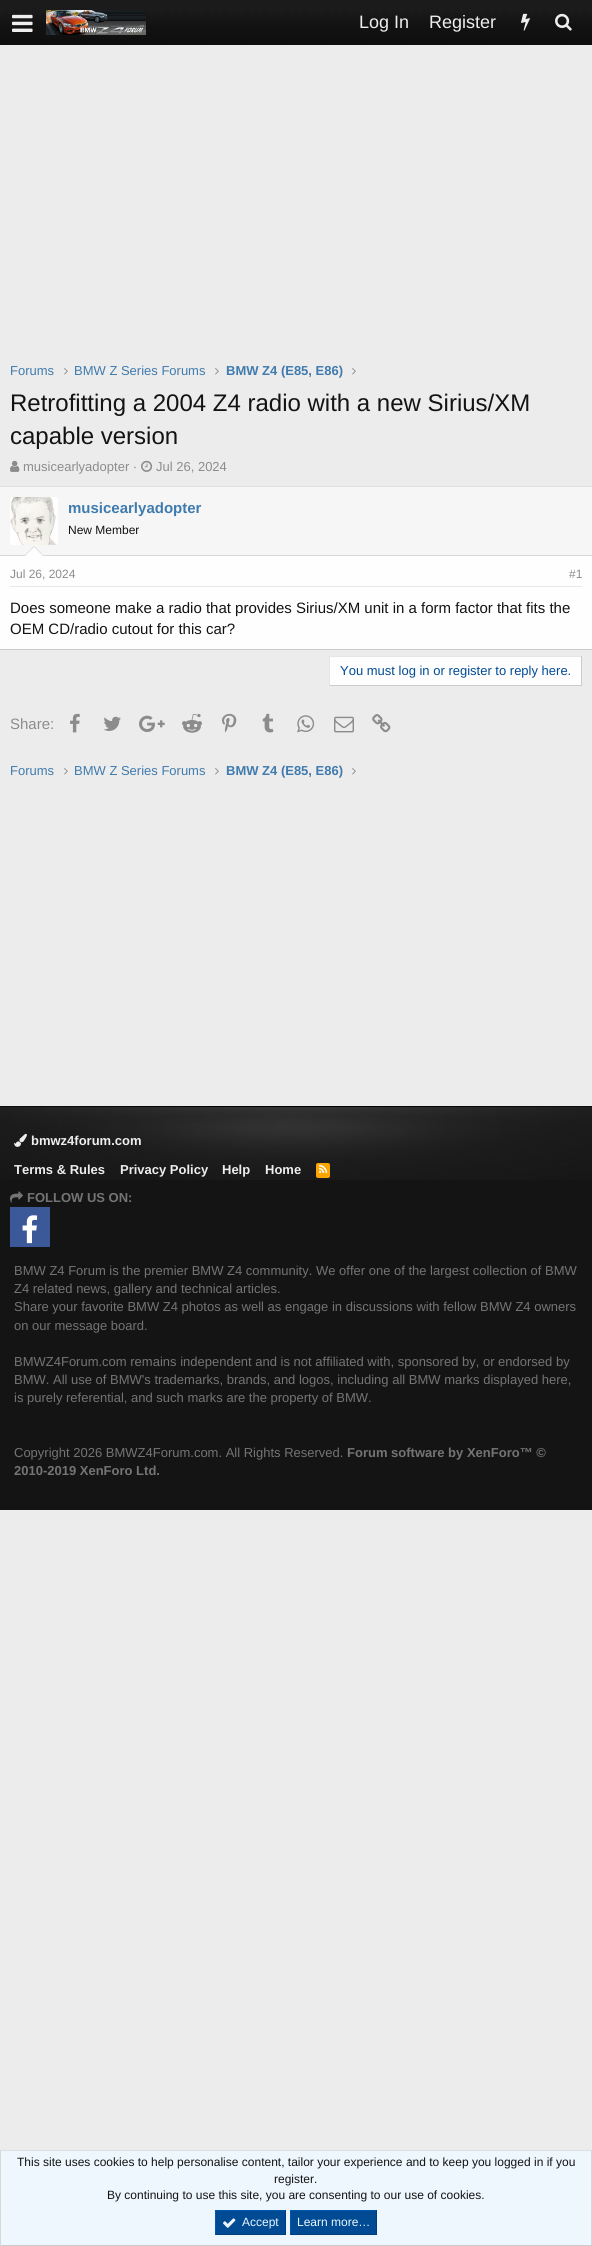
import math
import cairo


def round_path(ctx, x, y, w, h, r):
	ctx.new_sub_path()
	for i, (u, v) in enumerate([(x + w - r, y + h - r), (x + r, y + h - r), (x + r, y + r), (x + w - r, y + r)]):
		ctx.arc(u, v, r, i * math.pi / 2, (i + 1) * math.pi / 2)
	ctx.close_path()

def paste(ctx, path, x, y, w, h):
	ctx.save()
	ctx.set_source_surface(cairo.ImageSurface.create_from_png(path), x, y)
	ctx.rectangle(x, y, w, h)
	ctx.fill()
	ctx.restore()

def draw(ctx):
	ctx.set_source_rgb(0.925, 0.925, 0.925)
	ctx.paint()
	paste(ctx, 'media/1.png', 0, 0, 592, 45)
	paste(ctx, 'media/2.png', 12, 14, 21, 18)
	paste(ctx, 'media/3.png', 46, 10, 100, 25)
	ctx.select_font_face('Liberation Sans')
	ctx.set_font_size(18)
	ctx.set_source_rgb(0.933, 0.933, 0.933)
	ctx.move_to(359, 28)
	ctx.show_text('Log In')
	ctx.move_to(429, 28)
	ctx.show_text('Register')
	paste(ctx, 'media/4.png', 521, 13, 9, 18)
	paste(ctx, 'media/5.png', 555, 13, 17, 18)
	ctx.set_font_size(13)
	ctx.set_source_rgb(0.247, 0.482, 0.682)
	ctx.move_to(10, 375)
	ctx.show_text('Forums')
	paste(ctx, 'media/6.png', 64, 368, 4, 7)
	ctx.move_to(74, 375)
	ctx.show_text('BMW Z Series Forums')
	paste(ctx, 'media/6.png', 215, 368, 4, 7)
	ctx.select_font_face('Liberation Sans', cairo.FONT_SLANT_NORMAL, cairo.FONT_WEIGHT_BOLD)
	ctx.move_to(226, 375)
	ctx.show_text('BMW Z4 (E85, E86)')
	paste(ctx, 'media/6.png', 352, 368, 4, 7)
	ctx.select_font_face('Liberation Sans')
	ctx.set_font_size(24)
	ctx.set_source_rgb(0.078, 0.078, 0.078)
	ctx.move_to(10, 411)
	ctx.show_text('Retrofitting a 2004 Z4 radio with a new Sirius/XM')
	ctx.move_to(10, 444)
	ctx.show_text('capable version')
	paste(ctx, 'media/7.png', 10, 460, 10, 12)
	ctx.set_font_size(13)
	ctx.set_source_rgb(0.549, 0.549, 0.549)
	ctx.move_to(23, 471)
	ctx.show_text('musicearlyadopter ·')
	paste(ctx, 'media/8.png', 141, 460, 12, 12)
	ctx.move_to(156, 471)
	ctx.show_text('Jul 26, 2024')
	ctx.set_source_rgb(0.996, 0.996, 0.996)
	ctx.rectangle(0, 556, 592, 93)
	ctx.fill()
	ctx.set_source_rgb(0.875, 0.875, 0.875)
	ctx.rectangle(0, 486, 592, 1)
	ctx.fill()
	ctx.set_source_rgb(0.796, 0.796, 0.796)
	ctx.rectangle(0, 649, 592, 1)
	ctx.fill()
	ctx.set_source_rgb(0.961, 0.961, 0.961)
	ctx.rectangle(0, 487, 592, 68)
	ctx.fill()
	ctx.set_source_rgb(0.847, 0.847, 0.847)
	ctx.rectangle(0, 555, 592, 1)
	ctx.fill()
	ctx.set_source_rgb(0.996, 0.996, 0.996)
	round_path(ctx, 10, 497, 48, 48, 2)
	ctx.fill()
	paste(ctx, 'media/9.png', 10, 497, 47, 48)
	ctx.select_font_face('Liberation Sans', cairo.FONT_SLANT_NORMAL, cairo.FONT_WEIGHT_BOLD)
	ctx.set_font_size(15)
	ctx.set_source_rgb(0.247, 0.482, 0.682)
	ctx.move_to(68, 513)
	ctx.show_text('musicearlyadopter')
	ctx.select_font_face('Liberation Sans')
	ctx.set_font_size(12)
	ctx.set_source_rgb(0.078, 0.078, 0.078)
	ctx.move_to(68, 534)
	ctx.show_text('New Member')
	ctx.set_source_rgb(0.847, 0.847, 0.847)
	ctx.new_path()
	ctx.move_to(44, 556)
	ctx.line_to(24, 556)
	ctx.line_to(34, 546)
	ctx.close_path()
	ctx.fill()
	ctx.set_source_rgb(0.996, 0.996, 0.996)
	ctx.new_path()
	ctx.move_to(43, 556)
	ctx.line_to(25, 556)
	ctx.line_to(34, 547)
	ctx.close_path()
	ctx.fill()
	ctx.set_source_rgb(0.906, 0.906, 0.906)
	ctx.rectangle(10, 586, 572, 1)
	ctx.fill()
	ctx.set_source_rgb(0.549, 0.549, 0.549)
	ctx.move_to(10, 578)
	ctx.show_text('Jul 26, 2024')
	ctx.move_to(569, 578)
	ctx.show_text('#1')
	ctx.set_font_size(15)
	ctx.set_source_rgb(0.078, 0.078, 0.078)
	ctx.move_to(10, 613)
	ctx.show_text('Does someone make a radio that provides Sirius/XM unit in a form factor that fits the')
	ctx.move_to(10, 634)
	ctx.show_text('OEM CD/radio cutout for this car?')
	ctx.set_source_rgb(0.996, 0.996, 0.996)
	ctx.rectangle(330, 657, 251, 28)
	ctx.fill()
	ctx.set_source_rgb(0.898, 0.898, 0.898)
	ctx.rectangle(329, 656, 253, 1)
	ctx.fill()
	ctx.set_source_rgb(0.796, 0.796, 0.796)
	ctx.rectangle(581, 656, 1, 30)
	ctx.rectangle(329, 685, 253, 1)
	ctx.fill()
	ctx.set_source_rgb(0.898, 0.898, 0.898)
	ctx.rectangle(329, 656, 1, 30)
	ctx.fill()
	ctx.set_font_size(13)
	ctx.set_source_rgb(0, 0.294, 0.58)
	ctx.move_to(340, 675)
	ctx.show_text('You must log in or register to reply here.')
	ctx.set_font_size(15)
	ctx.set_source_rgb(0.549, 0.549, 0.549)
	ctx.move_to(10, 729)
	ctx.show_text('Share:')
	paste(ctx, 'media/10.png', 70, 713, 10, 20)
	paste(ctx, 'media/11.png', 103, 716, 18, 15)
	paste(ctx, 'media/12.png', 139, 715, 26, 17)
	paste(ctx, 'media/13.png', 182, 713, 20, 20)
	paste(ctx, 'media/14.png', 222, 713, 15, 20)
	paste(ctx, 'media/15.png', 262, 713, 12, 20)
	paste(ctx, 'media/16.png', 297, 715, 18, 18)
	paste(ctx, 'media/17.png', 334, 716, 20, 17)
	paste(ctx, 'media/18.png', 372, 714, 19, 19)
	ctx.set_font_size(13)
	ctx.set_source_rgb(0.247, 0.482, 0.682)
	ctx.move_to(10, 775)
	ctx.show_text('Forums')
	paste(ctx, 'media/6.png', 64, 768, 4, 7)
	ctx.move_to(74, 775)
	ctx.show_text('BMW Z Series Forums')
	paste(ctx, 'media/6.png', 215, 768, 4, 7)
	ctx.select_font_face('Liberation Sans', cairo.FONT_SLANT_NORMAL, cairo.FONT_WEIGHT_BOLD)
	ctx.move_to(226, 775)
	ctx.show_text('BMW Z4 (E85, E86)')
	paste(ctx, 'media/6.png', 352, 768, 4, 7)
	ctx.set_source_rgb(0.082, 0.082, 0.082)
	ctx.rectangle(0, 1180, 592, 330)
	ctx.fill()
	paste(ctx, 'media/19.png', 0, 1106, 592, 74)
	paste(ctx, 'media/20.png', 14, 1133, 13, 14)
	ctx.set_source_rgb(0.933, 0.933, 0.933)
	for x, y, s in [
		(31, 1145, 'bmwz4forum.com'),
		(14, 1174, 'Terms & Rules'),
		(120, 1174, 'Privacy Policy'),
		(222, 1174, 'Help'),
		(265, 1174, 'Home'),
	]:
		ctx.move_to(x, y)
		ctx.show_text(s)
	ctx.set_source_rgb(1, 0.647, 0)
	round_path(ctx, 316, 1163, 14, 15, 2)
	ctx.fill()
	paste(ctx, 'media/21.png', 319, 1164, 9, 9)
	paste(ctx, 'media/22.png', 10, 1191, 13, 12)
	ctx.set_source_rgb(0.455, 0.455, 0.455)
	ctx.move_to(27, 1202)
	ctx.show_text('FOLLOW US ON:')
	ctx.set_source_rgb(0.231, 0.349, 0.596)
	ctx.rectangle(10, 1207, 40, 40)
	ctx.fill()
	paste(ctx, 'media/23.png', 22, 1215, 16, 29)
	ctx.select_font_face('Liberation Sans')
	ctx.set_source_rgb(0.455, 0.455, 0.455)
	for x, y, s in [
		(14, 1275, 'BMW Z4 Forum is the premier BMW Z4 community. We offer one of the largest collection of BMW'),
		(14, 1293, 'Z4 related news, gallery and technical articles.'),
		(14, 1311, 'Share your favorite BMW Z4 photos as well as engage in discussions with fellow BMW Z4 owners'),
		(14, 1330, 'on our message board.'),
		(14, 1366, 'BMWZ4Forum.com remains independent and is not affiliated with, sponsored by, or endorsed by'),
		(14, 1384, 'BMW. All use of BMW\'s trademarks, brands, and logos, including all BMW marks displayed here,'),
		(14, 1402, 'is purely referential, and such marks are the property of BMW.'),
		(14, 1457, 'Copyright 2026 BMWZ4Forum.com. All Rights Reserved.'),
	]:
		ctx.move_to(x, y)
		ctx.show_text(s)
	ctx.select_font_face('Liberation Sans', cairo.FONT_SLANT_NORMAL, cairo.FONT_WEIGHT_BOLD)
	ctx.move_to(347, 1457)
	ctx.show_text('Forum software by XenForo™ ©')
	ctx.move_to(14, 1475)
	ctx.show_text('2010-2019 XenForo Ltd.')
	ctx.set_source_rgb(0.929, 0.965, 0.992)
	ctx.rectangle(1, 2151, 590, 94)
	ctx.fill()
	ctx.set_source_rgb(0.875, 0.875, 0.875)
	ctx.rectangle(0, 2150, 592, 1)
	ctx.fill()
	ctx.set_source_rgb(0.847, 0.847, 0.847)
	ctx.rectangle(591, 2150, 1, 96)
	ctx.fill()
	ctx.set_source_rgb(0.796, 0.796, 0.796)
	ctx.rectangle(0, 2245, 592, 1)
	ctx.fill()
	ctx.set_source_rgb(0.847, 0.847, 0.847)
	ctx.rectangle(0, 2150, 1, 96)
	ctx.fill()
	ctx.select_font_face('Liberation Sans')
	ctx.set_font_size(12)
	ctx.set_source_rgb(0.078, 0.078, 0.078)
	for x, y, s in [
		(17, 2166, 'This site uses cookies to help personalise content, tailor your experience and to keep you logged in if you'),
		(274, 2183, 'register.'),
		(107, 2199, 'By continuing to use this site, you are consenting to our use of cookies.'),
	]:
		ctx.move_to(x, y)
		ctx.show_text(s)
	ctx.set_source_rgb(0, 0.294, 0.58)
	ctx.rectangle(216, 2211, 69, 23)
	ctx.fill()
	ctx.set_source_rgb(0, 0.345, 0.682)
	ctx.rectangle(215, 2210, 71, 1)
	ctx.fill()
	ctx.set_source_rgb(0, 0.243, 0.482)
	ctx.rectangle(285, 2210, 1, 25)
	ctx.rectangle(215, 2234, 71, 1)
	ctx.fill()
	ctx.set_source_rgb(0, 0.345, 0.682)
	ctx.rectangle(215, 2210, 1, 25)
	ctx.fill()
	paste(ctx, 'media/24.png', 223, 2218, 13, 10)
	ctx.set_source_rgb(0.929, 0.965, 0.992)
	ctx.move_to(242, 2226)
	ctx.show_text('Accept')
	ctx.set_source_rgb(0, 0.294, 0.58)
	ctx.rectangle(291, 2211, 85, 23)
	ctx.fill()
	ctx.set_source_rgb(0, 0.345, 0.682)
	ctx.rectangle(290, 2210, 87, 1)
	ctx.fill()
	ctx.set_source_rgb(0, 0.243, 0.482)
	ctx.rectangle(376, 2210, 1, 25)
	ctx.rectangle(290, 2234, 87, 1)
	ctx.fill()
	ctx.set_source_rgb(0, 0.345, 0.682)
	ctx.rectangle(290, 2210, 1, 25)
	ctx.fill()
	ctx.set_source_rgb(0.929, 0.965, 0.992)
	ctx.move_to(297, 2226)
	ctx.show_text('Learn more…')


surface = cairo.ImageSurface(cairo.FORMAT_RGB24, 592, 2246)
ctx = cairo.Context(surface)
options = cairo.FontOptions()
options.set_hint_metrics(cairo.HINT_METRICS_OFF)
options.set_hint_style(cairo.HINT_STYLE_NONE)
ctx.set_font_options(options)
ctx.set_miter_limit(4)
draw(ctx)
surface.write_to_png('image.png')
